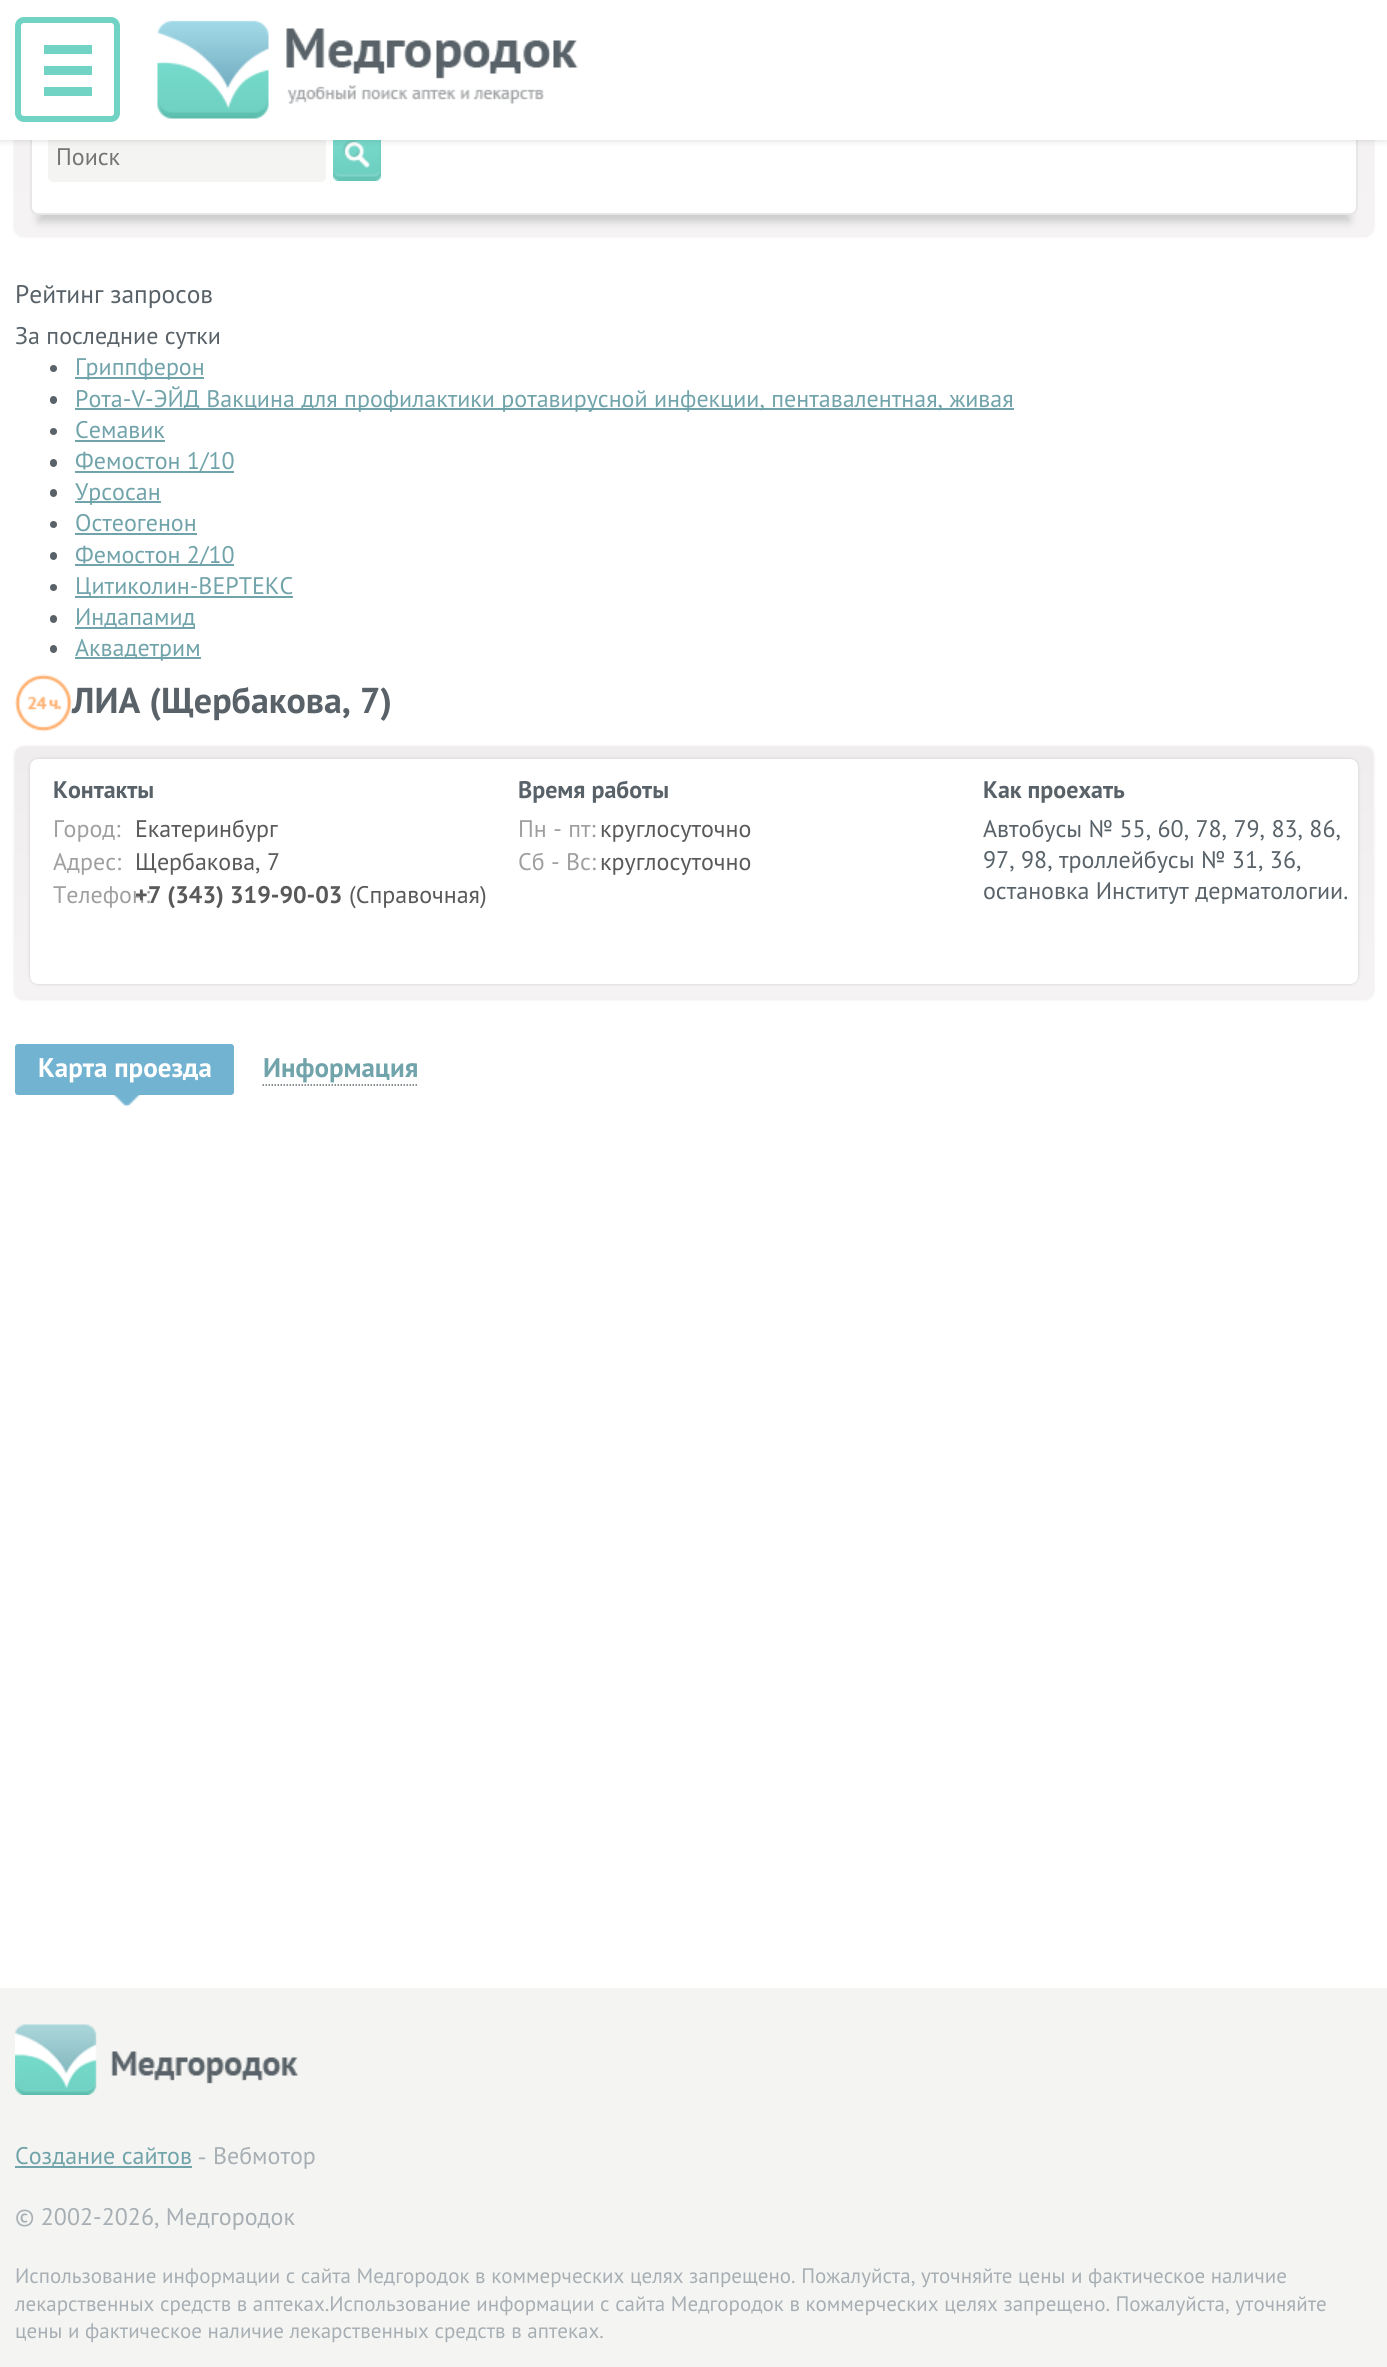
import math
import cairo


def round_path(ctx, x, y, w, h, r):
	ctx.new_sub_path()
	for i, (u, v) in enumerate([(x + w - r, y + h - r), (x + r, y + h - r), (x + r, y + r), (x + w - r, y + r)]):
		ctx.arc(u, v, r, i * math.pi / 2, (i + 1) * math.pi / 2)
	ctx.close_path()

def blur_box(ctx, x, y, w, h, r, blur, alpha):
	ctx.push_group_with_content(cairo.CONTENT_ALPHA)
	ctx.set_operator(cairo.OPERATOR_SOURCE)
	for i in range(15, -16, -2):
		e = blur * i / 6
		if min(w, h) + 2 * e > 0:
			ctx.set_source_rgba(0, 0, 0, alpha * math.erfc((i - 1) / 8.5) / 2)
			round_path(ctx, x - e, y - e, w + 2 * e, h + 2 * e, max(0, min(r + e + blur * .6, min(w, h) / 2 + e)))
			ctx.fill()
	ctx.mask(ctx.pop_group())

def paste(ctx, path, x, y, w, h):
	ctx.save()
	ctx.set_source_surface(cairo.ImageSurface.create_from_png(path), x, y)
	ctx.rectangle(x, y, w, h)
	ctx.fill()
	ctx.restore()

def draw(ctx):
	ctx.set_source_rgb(1, 1, 1)
	ctx.paint()
	ctx.set_source_rgb(0.867, 0.867, 0.867)
	blur_box(ctx, 15, -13, 1358, 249, 8, 1.5, 1)
	gradient = cairo.LinearGradient(694, -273, 694, 236)
	gradient.add_color_stop_rgba(0, 0.937, 0.929, 0.929, 1)
	gradient.add_color_stop_rgba(1, 0.961, 0.953, 0.953, 1)
	ctx.set_source(gradient)
	round_path(ctx, 15, -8, 1358, 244, 8)
	ctx.fill()
	ctx.set_source_rgb(0.8, 0.8, 0.8)
	blur_box(ctx, 38, 92, 1312, 130, 0, 4, 1)
	ctx.set_source_rgb(1, 1, 1)
	round_path(ctx, 31, 70, 1326, 144, 7)
	ctx.fill_preserve()
	ctx.set_source_rgb(0.906, 0.906, 0.906)
	ctx.stroke()
	ctx.set_source_rgb(0.957, 0.957, 0.949)
	round_path(ctx, 48, 132, 278, 50, 5)
	ctx.fill()
	paste(ctx, 'media/2.png', 333, 140, 48, 41)
	ctx.set_source_rgb(0, 0, 0)
	blur_box(ctx, 0, 0, 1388, 140, 0, 4, 0.15)
	ctx.set_source_rgb(1, 1, 1)
	ctx.rectangle(0, 0, 1387, 140)
	ctx.fill()
	round_path(ctx, 18, 20, 99, 99, 6)
	ctx.set_source_rgb(0.439, 0.827, 0.769)
	ctx.set_line_width(6)
	ctx.stroke()
	ctx.rectangle(44, 45, 48, 9)
	ctx.rectangle(44, 66, 48, 9)
	ctx.rectangle(44, 87, 48, 9)
	ctx.fill()
	paste(ctx, 'media/1.png', 157, 20, 421, 99)
	ctx.select_font_face('PT Sans')
	ctx.set_font_size(24)
	ctx.set_source_rgb(0.459, 0.459, 0.459)
	ctx.move_to(56, 165)
	ctx.show_text('Поиск')
	ctx.set_font_size(25.5)
	ctx.set_source_rgb(0.345, 0.384, 0.408)
	ctx.move_to(15, 303)
	ctx.show_text('Рейтинг запросов')
	ctx.set_font_size(24)
	ctx.move_to(15, 344)
	ctx.show_text('За последние сутки')
	ctx.new_path()
	ctx.arc(53.5, 368.5, 3.5, 0, 2 * math.pi)
	ctx.fill()
	ctx.set_source_rgb(0.443, 0.639, 0.667)
	ctx.rectangle(75, 377, 129, 2)
	ctx.fill()
	ctx.move_to(75, 375)
	ctx.show_text('Гриппферон')
	ctx.set_source_rgb(0.345, 0.384, 0.408)
	round_path(ctx, 50, 396, 7, 8, 3.5)
	ctx.fill()
	ctx.set_source_rgb(0.443, 0.639, 0.667)
	ctx.rectangle(75, 408, 939, 2)
	ctx.fill()
	ctx.move_to(75, 407)
	ctx.show_text('Рота-V-ЭЙД Вакцина для профилактики ротавирусной инфекции, пентавалентная, живая')
	ctx.set_source_rgb(0.345, 0.384, 0.408)
	ctx.new_path()
	ctx.arc(53.5, 431.5, 3.5, 0, 2 * math.pi)
	ctx.fill()
	ctx.set_source_rgb(0.443, 0.639, 0.667)
	ctx.move_to(75, 438)
	ctx.show_text('Семавик')
	ctx.rectangle(75, 440, 90, 2)
	ctx.fill()
	ctx.set_source_rgb(0.345, 0.384, 0.408)
	round_path(ctx, 50, 459, 7, 8, 3.5)
	ctx.fill()
	ctx.set_source_rgb(0.443, 0.639, 0.667)
	ctx.rectangle(75, 471, 159, 2)
	ctx.fill()
	ctx.move_to(75, 469)
	ctx.show_text('Фемостон 1/10')
	ctx.set_source_rgb(0.345, 0.384, 0.408)
	round_path(ctx, 50, 489, 7, 8, 3.5)
	ctx.fill()
	ctx.set_source_rgb(0.443, 0.639, 0.667)
	ctx.rectangle(75, 501, 86, 2)
	ctx.fill()
	ctx.move_to(75, 500)
	ctx.show_text('Урсосан')
	ctx.set_source_rgb(0.345, 0.384, 0.408)
	ctx.new_path()
	ctx.arc(53.5, 524.5, 3.5, 0, 2 * math.pi)
	ctx.fill()
	ctx.set_source_rgb(0.443, 0.639, 0.667)
	ctx.move_to(75, 531)
	ctx.show_text('Остеогенон')
	ctx.rectangle(75, 533, 122, 2)
	ctx.fill()
	ctx.set_source_rgb(0.345, 0.384, 0.408)
	round_path(ctx, 50, 552, 7, 8, 3.5)
	ctx.fill()
	ctx.set_source_rgb(0.443, 0.639, 0.667)
	ctx.rectangle(75, 564, 159, 2)
	ctx.fill()
	ctx.move_to(75, 563)
	ctx.show_text('Фемостон 2/10')
	ctx.set_source_rgb(0.345, 0.384, 0.408)
	ctx.new_path()
	ctx.arc(53.5, 587.5, 3.5, 0, 2 * math.pi)
	ctx.fill()
	ctx.set_source_rgb(0.443, 0.639, 0.667)
	ctx.rectangle(75, 596, 218, 2)
	ctx.fill()
	ctx.move_to(75, 594)
	ctx.show_text('Цитиколин-ВЕРТЕКС')
	ctx.set_source_rgb(0.345, 0.384, 0.408)
	round_path(ctx, 50, 615, 7, 8, 3.5)
	ctx.fill()
	ctx.set_source_rgb(0.443, 0.639, 0.667)
	ctx.rectangle(75, 627, 120, 2)
	ctx.fill()
	ctx.move_to(75, 625)
	ctx.show_text('Индапамид')
	ctx.set_source_rgb(0.345, 0.384, 0.408)
	round_path(ctx, 50, 645, 7, 8, 3.5)
	ctx.fill()
	ctx.set_source_rgb(0.443, 0.639, 0.667)
	ctx.rectangle(75, 657, 126, 2)
	ctx.fill()
	ctx.move_to(75, 656)
	ctx.show_text('Аквадетрим')
	paste(ctx, 'media/3.png', 15, 674, 57, 58)
	ctx.select_font_face('PT Sans', cairo.FONT_SLANT_NORMAL, cairo.FONT_WEIGHT_BOLD)
	ctx.set_font_size(36)
	ctx.set_source_rgb(0.345, 0.384, 0.408)
	ctx.move_to(72, 713)
	ctx.show_text('ЛИА (Щербакова, 7)')
	ctx.set_source_rgb(0.867, 0.867, 0.867)
	blur_box(ctx, 15, 747, 1358, 252, 8, 1.5, 1)
	gradient = cairo.LinearGradient(694, 747, 694, 999)
	gradient.add_color_stop_rgba(0, 0.937, 0.929, 0.929, 1)
	gradient.add_color_stop_rgba(1, 0.961, 0.953, 0.953, 1)
	ctx.set_source(gradient)
	round_path(ctx, 15, 747, 1358, 252, 8)
	ctx.fill()
	ctx.set_source_rgb(0.8, 0.8, 0.8)
	blur_box(ctx, 30, 759, 1328, 225, 8, 1.5, 1)
	ctx.set_source_rgb(1, 1, 1)
	round_path(ctx, 30, 759, 1328, 225, 8)
	ctx.fill()
	ctx.set_font_size(24)
	ctx.set_source_rgb(0.345, 0.384, 0.408)
	ctx.move_to(53, 798)
	ctx.show_text('Контакты')
	ctx.select_font_face('PT Sans')
	ctx.set_source_rgb(0.624, 0.624, 0.624)
	ctx.move_to(53, 837)
	ctx.show_text('Город:')
	ctx.set_source_rgb(0.349, 0.349, 0.349)
	ctx.move_to(135, 837)
	ctx.show_text('Екатеринбург')
	ctx.set_source_rgb(0.624, 0.624, 0.624)
	ctx.move_to(53, 870)
	ctx.show_text('Адрес:')
	ctx.set_source_rgb(0.349, 0.349, 0.349)
	ctx.move_to(135, 870)
	ctx.show_text('Щербакова, 7')
	ctx.set_source_rgb(0.624, 0.624, 0.624)
	ctx.move_to(53, 903)
	ctx.show_text('Телефон:')
	ctx.select_font_face('PT Sans', cairo.FONT_SLANT_NORMAL, cairo.FONT_WEIGHT_BOLD)
	ctx.set_source_rgb(0.349, 0.349, 0.349)
	ctx.move_to(135, 903)
	ctx.show_text('+7 (343) 319-90-03')
	ctx.select_font_face('PT Sans')
	ctx.move_to(349, 903)
	ctx.show_text('(Справочная)')
	ctx.select_font_face('PT Sans', cairo.FONT_SLANT_NORMAL, cairo.FONT_WEIGHT_BOLD)
	ctx.set_source_rgb(0.345, 0.384, 0.408)
	ctx.move_to(518, 798)
	ctx.show_text('Время работы')
	ctx.select_font_face('PT Sans')
	ctx.set_source_rgb(0.624, 0.624, 0.624)
	ctx.move_to(518, 837)
	ctx.show_text('Пн - пт:')
	ctx.set_source_rgb(0.349, 0.349, 0.349)
	ctx.move_to(600, 837)
	ctx.show_text('круглосуточно')
	ctx.set_source_rgb(0.624, 0.624, 0.624)
	ctx.move_to(518, 870)
	ctx.show_text('Сб - Вс:')
	ctx.set_source_rgb(0.349, 0.349, 0.349)
	ctx.move_to(600, 870)
	ctx.show_text('круглосуточно')
	ctx.select_font_face('PT Sans', cairo.FONT_SLANT_NORMAL, cairo.FONT_WEIGHT_BOLD)
	ctx.set_source_rgb(0.345, 0.384, 0.408)
	ctx.move_to(983, 798)
	ctx.show_text('Как проехать')
	ctx.select_font_face('PT Sans')
	for x, y, s in [
		(983, 837, 'Автобусы № 55, 60, 78, 79, 83, 86,'),
		(983, 868, '97, 98, троллейбусы № 31, 36,'),
		(983, 899, 'остановка Институт дерматологии.'),
	]:
		ctx.move_to(x, y)
		ctx.show_text(s)
	ctx.set_source_rgb(0.451, 0.702, 0.824)
	round_path(ctx, 15, 1044, 219, 51, 3)
	ctx.fill()
	ctx.select_font_face('PT Sans', cairo.FONT_SLANT_NORMAL, cairo.FONT_WEIGHT_BOLD)
	ctx.set_font_size(27)
	ctx.set_source_rgb(1, 1, 1)
	ctx.move_to(38, 1077)
	ctx.show_text('Карта проезда')
	paste(ctx, 'media/4.png', 114, 1095, 26, 12)
	ctx.set_source_rgb(0.443, 0.639, 0.667)
	ctx.move_to(263, 1077)
	ctx.show_text('Информация')
	ctx.new_path()
	ctx.move_to(262.5, 1085)
	ctx.line_to(418.5, 1085)
	ctx.set_source_rgb(0.384, 0.424, 0.443)
	ctx.set_line_width(1.5)
	ctx.set_dash([1.5, 1.5])
	ctx.stroke()
	ctx.set_source_rgb(0.957, 0.957, 0.949)
	ctx.rectangle(0, 1988, 1387, 379)
	ctx.fill()
	paste(ctx, 'media/5.png', 15, 2024, 284, 71)
	ctx.set_source_rgb(0.443, 0.639, 0.667)
	ctx.rectangle(15, 2166, 177, 2)
	ctx.fill()
	ctx.select_font_face('PT Sans')
	ctx.set_font_size(24)
	ctx.move_to(15, 2164)
	ctx.show_text('Создание сайтов')
	ctx.select_font_face('Liberation Serif')
	ctx.set_source_rgb(0.655, 0.686, 0.706)
	ctx.move_to(198, 2164)
	ctx.show_text('‐')
	ctx.select_font_face('PT Sans')
	ctx.move_to(213, 2164)
	ctx.show_text('Вебмотор')
	ctx.move_to(15, 2225)
	ctx.show_text('© 2002-2026, Медгородок')
	ctx.set_font_size(21)
	for x, y, s in [
		(15, 2283, 'Использование информации с сайта Медгородок в коммерческих целях запрещено. Пожалуйста, уточняйте цены и фактическое наличие'),
		(15, 2311, 'лекарственных средств в аптеках.Использование информации с сайта Медгородок в коммерческих целях запрещено. Пожалуйста, уточняйте'),
		(15, 2338, 'цены и фактическое наличие лекарственных средств в аптеках.'),
	]:
		ctx.move_to(x, y)
		ctx.show_text(s)


surface = cairo.ImageSurface(cairo.FORMAT_RGB24, 1387, 2367)
ctx = cairo.Context(surface)
options = cairo.FontOptions()
options.set_hint_metrics(cairo.HINT_METRICS_OFF)
options.set_hint_style(cairo.HINT_STYLE_NONE)
ctx.set_font_options(options)
ctx.set_miter_limit(4)
draw(ctx)
surface.write_to_png('image.png')
